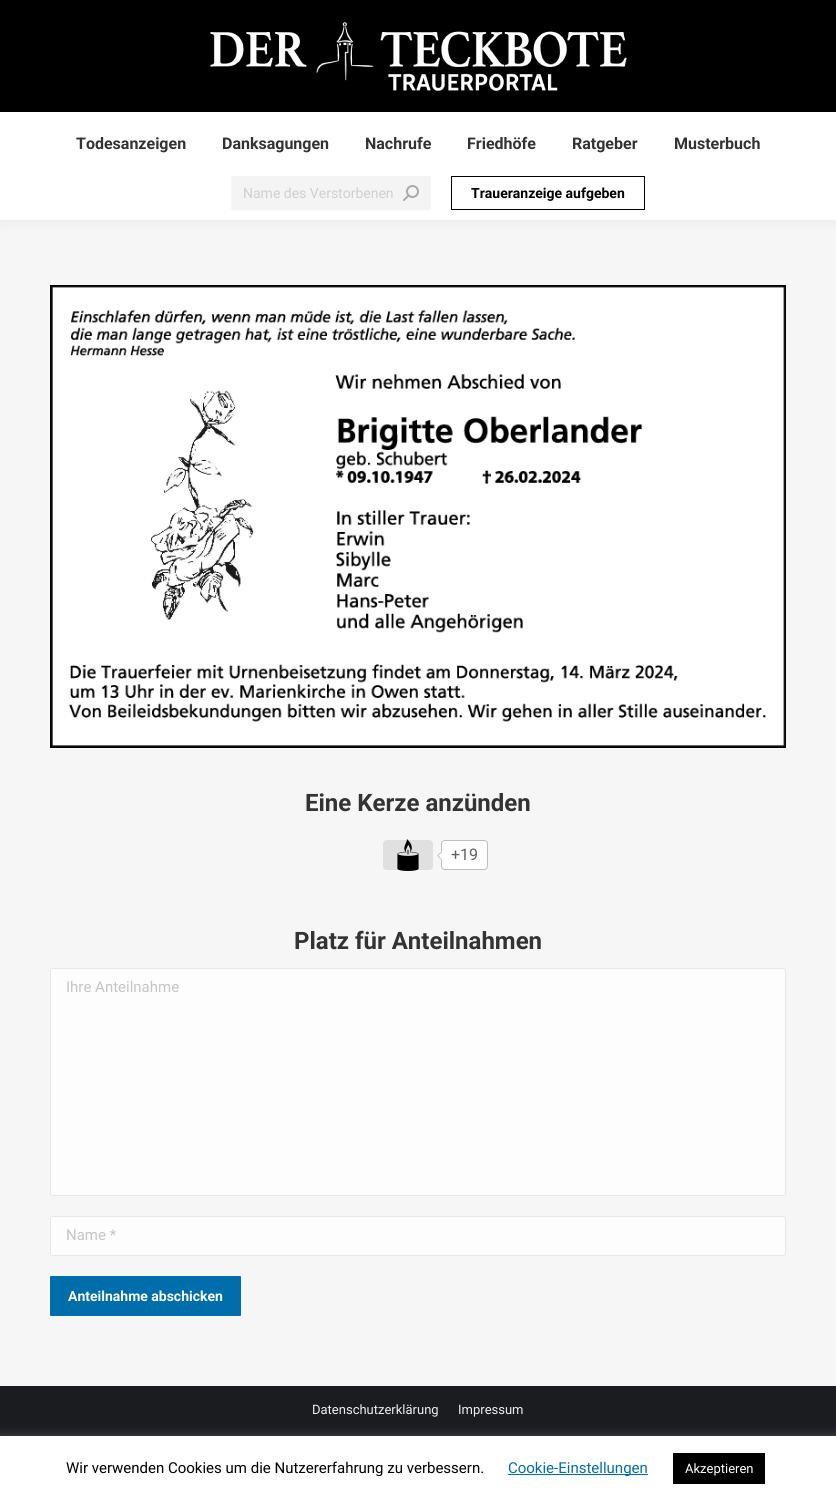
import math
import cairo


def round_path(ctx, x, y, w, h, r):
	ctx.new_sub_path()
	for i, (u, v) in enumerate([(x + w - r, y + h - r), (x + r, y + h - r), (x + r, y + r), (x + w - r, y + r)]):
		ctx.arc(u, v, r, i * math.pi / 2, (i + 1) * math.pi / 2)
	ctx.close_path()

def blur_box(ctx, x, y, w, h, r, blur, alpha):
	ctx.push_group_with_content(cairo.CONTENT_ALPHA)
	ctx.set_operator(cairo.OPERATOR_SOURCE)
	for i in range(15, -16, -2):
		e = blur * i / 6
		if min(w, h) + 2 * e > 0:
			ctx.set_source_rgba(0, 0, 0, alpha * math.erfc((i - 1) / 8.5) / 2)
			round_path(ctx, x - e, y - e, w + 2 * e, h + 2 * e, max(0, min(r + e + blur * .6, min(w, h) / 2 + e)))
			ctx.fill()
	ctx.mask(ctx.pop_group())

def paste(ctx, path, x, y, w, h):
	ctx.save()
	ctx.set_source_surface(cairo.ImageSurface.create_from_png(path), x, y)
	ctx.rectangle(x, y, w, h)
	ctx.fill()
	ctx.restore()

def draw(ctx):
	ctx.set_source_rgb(0.961, 0.961, 0.961)
	ctx.paint()
	ctx.set_source_rgb(0, 0, 0)
	blur_box(ctx, -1, -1, 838, 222, 0, 7.5, 0.07)
	ctx.set_source_rgb(0, 0, 0)
	ctx.rectangle(0, 0, 836, 112)
	ctx.fill()
	paste(ctx, 'media/1.png', 210, 22, 417, 69)
	ctx.set_source_rgb(1, 1, 1)
	ctx.rectangle(0, 112, 836, 108)
	ctx.fill()
	ctx.select_font_face('Roboto', cairo.FONT_SLANT_NORMAL, cairo.FONT_WEIGHT_BOLD)
	ctx.set_font_size(16)
	ctx.set_source_rgb(0.2, 0.2, 0.2)
	for x, y, s in [
		(76, 149, 'Todesanzeigen'),
		(222, 149, 'Danksagungen'),
		(365, 149, 'Nachrufe'),
		(467, 149, 'Friedhöfe'),
		(572, 149, 'Ratgeber'),
		(674, 149, 'Musterbuch'),
	]:
		ctx.move_to(x, y)
		ctx.show_text(s)
	ctx.set_source_rgb(0.957, 0.957, 0.957)
	ctx.rectangle(231, 176, 200, 34)
	ctx.fill()
	ctx.select_font_face('Roboto')
	ctx.set_font_size(14)
	ctx.set_source_rgb(0.812, 0.812, 0.812)
	ctx.move_to(243, 198)
	ctx.show_text('Name des Verstorbenen')
	paste(ctx, 'media/2.png', 403, 185, 16, 16)
	ctx.rectangle(451.5, 176.5, 193, 33)
	ctx.set_source_rgb(0, 0, 0)
	ctx.set_line_width(1)
	ctx.stroke()
	ctx.select_font_face('Roboto', cairo.FONT_SLANT_NORMAL, cairo.FONT_WEIGHT_BOLD)
	ctx.move_to(471, 198)
	ctx.show_text('Traueranzeige aufgeben')
	paste(ctx, 'media/3.png', 50, 285, 736, 463)
	ctx.set_font_size(24)
	ctx.set_source_rgb(0.2, 0.2, 0.2)
	ctx.move_to(305, 811)
	ctx.show_text('Eine Kerze anzünden')
	ctx.set_source_rgb(0.878, 0.878, 0.878)
	round_path(ctx, 383, 840, 50, 30, 4)
	ctx.fill()
	paste(ctx, 'media/4.png', 397, 839, 22, 32)
	ctx.set_source_rgb(1, 1, 1)
	round_path(ctx, 441.5, 840.5, 46, 29, 3.5)
	ctx.fill_preserve()
	ctx.set_source_rgb(0.741, 0.741, 0.741)
	ctx.stroke()
	ctx.set_source_rgb(1, 1, 1)
	ctx.new_path()
	ctx.move_to(442, 851)
	ctx.line_to(447, 855.5)
	ctx.line_to(442, 860.5)
	ctx.line_to(437, 855.5)
	ctx.close_path()
	ctx.fill()
	ctx.set_source_rgb(0.741, 0.741, 0.741)
	ctx.new_path()
	ctx.move_to(442, 860.5)
	ctx.line_to(437, 855.5)
	ctx.line_to(438.5, 855.5)
	ctx.line_to(442, 859.5)
	ctx.close_path()
	ctx.fill()
	ctx.new_path()
	ctx.move_to(437, 855.5)
	ctx.line_to(442, 851)
	ctx.line_to(442, 852)
	ctx.line_to(438.5, 855.5)
	ctx.close_path()
	ctx.fill()
	ctx.select_font_face('Roboto')
	ctx.set_font_size(16)
	ctx.set_source_rgb(0.38, 0.38, 0.38)
	ctx.move_to(451, 860)
	ctx.show_text('+19')
	ctx.select_font_face('Roboto', cairo.FONT_SLANT_NORMAL, cairo.FONT_WEIGHT_BOLD)
	ctx.set_font_size(24)
	ctx.set_source_rgb(0.2, 0.2, 0.2)
	ctx.move_to(294, 949)
	ctx.show_text('Platz für Anteilnahmen')
	ctx.set_source_rgb(0.992, 0.992, 0.992)
	round_path(ctx, 50.5, 968.5, 735, 227, 1.5)
	ctx.fill_preserve()
	ctx.set_source_rgb(0.906, 0.906, 0.906)
	ctx.stroke()
	ctx.select_font_face('Roboto')
	ctx.set_font_size(15)
	ctx.set_source_rgb(0.769, 0.773, 0.788)
	ctx.move_to(66, 992)
	ctx.show_text('Ihre Anteilnahme')
	ctx.set_source_rgb(0.992, 0.992, 0.992)
	round_path(ctx, 50.5, 1216.5, 735, 39, 1.5)
	ctx.fill_preserve()
	ctx.set_source_rgb(0.906, 0.906, 0.906)
	ctx.stroke()
	ctx.set_source_rgb(0.769, 0.773, 0.788)
	ctx.move_to(66, 1240)
	ctx.show_text('Name *')
	ctx.set_source_rgb(0, 0.431, 0.671)
	round_path(ctx, 50, 1276, 191, 40, 1)
	ctx.fill()
	ctx.select_font_face('Roboto', cairo.FONT_SLANT_NORMAL, cairo.FONT_WEIGHT_BOLD)
	ctx.set_font_size(14)
	ctx.set_source_rgb(1, 1, 1)
	ctx.move_to(68, 1301)
	ctx.show_text('Anteilnahme abschicken')
	ctx.set_source_rgb(0.102, 0.11, 0.125)
	ctx.rectangle(0, 1386, 836, 50)
	ctx.fill()
	ctx.select_font_face('Roboto')
	ctx.set_font_size(13)
	ctx.set_source_rgb(0.933, 0.933, 0.933)
	ctx.move_to(312, 1414)
	ctx.show_text('Datenschutzerklärung')
	ctx.move_to(458, 1414)
	ctx.show_text('Impressum')
	ctx.set_source_rgb(0.675, 0.671, 0.671)
	blur_box(ctx, 0, 1435, 836, 65, 0, 5, 0.3)
	ctx.set_source_rgb(1, 1, 1)
	ctx.rectangle(0, 1436, 836, 65)
	ctx.fill()
	ctx.set_font_size(15)
	ctx.set_source_rgb(0, 0, 0)
	ctx.move_to(66, 1473)
	ctx.show_text('Wir verwenden Cookies um die Nutzererfahrung zu verbessern.')
	ctx.set_source_rgb(0, 0.431, 0.671)
	ctx.rectangle(508, 1474, 140, 1)
	ctx.fill()
	ctx.move_to(508, 1473)
	ctx.show_text('Cookie-Einstellungen')
	ctx.set_source_rgb(0, 0, 0)
	ctx.rectangle(673, 1453, 92, 31)
	ctx.fill()
	ctx.set_font_size(13)
	ctx.set_source_rgb(1, 1, 1)
	ctx.move_to(685, 1473)
	ctx.show_text('Akzeptieren')


surface = cairo.ImageSurface(cairo.FORMAT_RGB24, 836, 1501)
ctx = cairo.Context(surface)
options = cairo.FontOptions()
options.set_hint_metrics(cairo.HINT_METRICS_OFF)
options.set_hint_style(cairo.HINT_STYLE_NONE)
ctx.set_font_options(options)
ctx.set_miter_limit(4)
draw(ctx)
surface.write_to_png('image.png')
